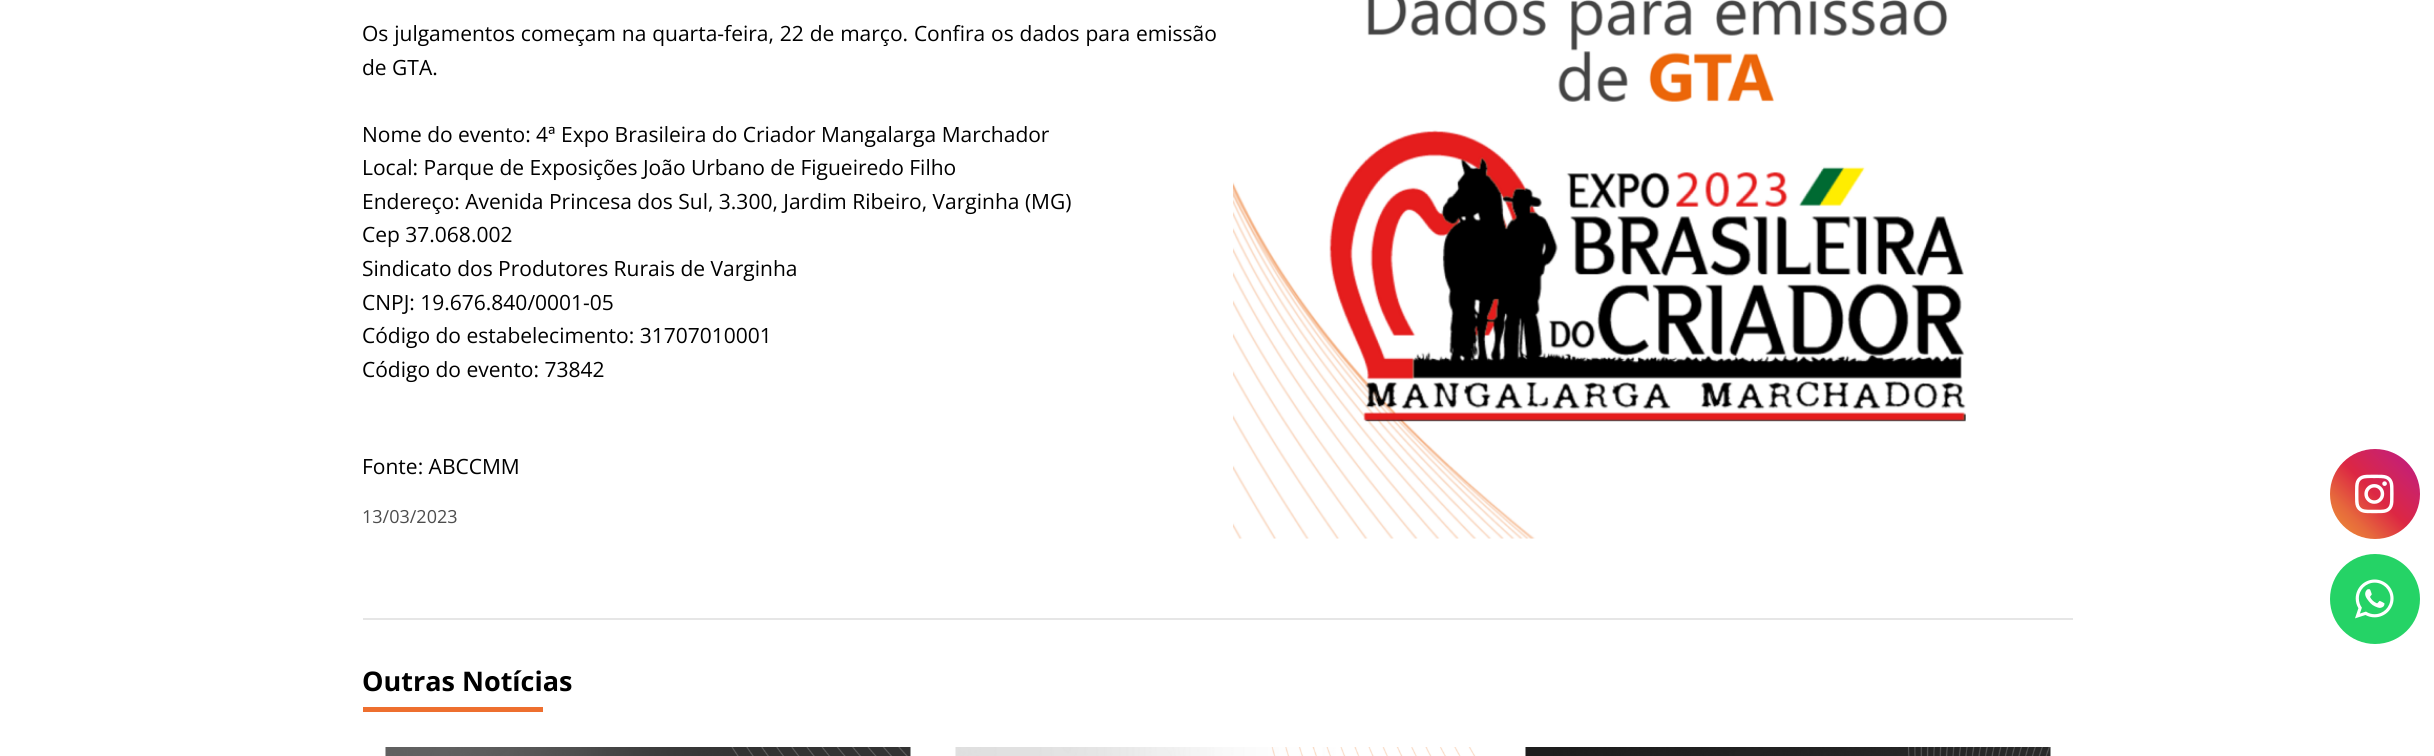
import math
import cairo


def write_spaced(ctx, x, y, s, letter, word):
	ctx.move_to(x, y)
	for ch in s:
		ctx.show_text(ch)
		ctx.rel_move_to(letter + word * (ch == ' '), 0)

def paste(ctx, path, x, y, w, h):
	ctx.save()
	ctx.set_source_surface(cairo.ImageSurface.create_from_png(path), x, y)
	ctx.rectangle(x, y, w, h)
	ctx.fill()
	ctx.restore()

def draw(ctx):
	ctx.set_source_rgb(1, 1, 1)
	ctx.paint()
	ctx.select_font_face('Open Sans')
	ctx.set_font_size(21)
	ctx.set_source_rgb(0, 0, 0)
	write_spaced(ctx, 362, 41, 'Os julgamentos começam na quarta-feira, 22 de março. Confira os dados para emissão', 0, 0.4)
	for x, y, s in [
		(362, 75, 'de GTA.'),
		(362, 142, 'Nome do evento: 4ª Expo Brasileira do Criador Mangalarga Marchador'),
		(362, 175, 'Local: Parque de Exposições João Urbano de Figueiredo Filho'),
		(362, 209, 'Endereço: Avenida Princesa dos Sul, 3.300, Jardim Ribeiro, Varginha (MG)'),
		(362, 242, 'Cep 37.068.002'),
		(362, 276, 'Sindicato dos Produtores Rurais de Varginha'),
		(362, 310, 'CNPJ: 19.676.840/0001-05'),
		(362, 343, 'Código do estabelecimento: 31707010001'),
		(362, 377, 'Código do evento: 73842'),
		(362, 474, 'Fonte: ABCCMM'),
	]:
		ctx.move_to(x, y)
		ctx.show_text(s)
	paste(ctx, 'media/1.png', 1233, 0, 733, 539)
	ctx.set_font_size(18)
	ctx.set_source_rgb(0.302, 0.302, 0.302)
	ctx.move_to(362, 523)
	ctx.show_text('13/03/2023')
	ctx.set_source_rgb(0.902, 0.902, 0.902)
	ctx.rectangle(363, 618, 1710, 2)
	ctx.fill()
	ctx.select_font_face('Open Sans', cairo.FONT_SLANT_NORMAL, cairo.FONT_WEIGHT_BOLD)
	ctx.set_font_size(27)
	ctx.set_source_rgb(0, 0, 0)
	ctx.move_to(362, 691)
	ctx.show_text('Outras Notícias')
	ctx.set_source_rgb(0.933, 0.435, 0.184)
	ctx.rectangle(363, 707, 180, 5)
	ctx.fill()
	paste(ctx, 'media/2.png', 385, 747, 526, 9)
	paste(ctx, 'media/3.png', 955, 747, 521, 9)
	paste(ctx, 'media/4.png', 1525, 747, 526, 9)
	gradient = cairo.LinearGradient(2330, 539, 2420, 449)
	gradient.add_color_stop_rgba(0, 0.941, 0.58, 0.2, 1)
	gradient.add_color_stop_rgba(0.25, 0.902, 0.408, 0.235, 1)
	gradient.add_color_stop_rgba(0.5, 0.863, 0.153, 0.263, 1)
	gradient.add_color_stop_rgba(0.75, 0.8, 0.137, 0.4, 1)
	gradient.add_color_stop_rgba(1, 0.737, 0.094, 0.533, 1)
	ctx.set_source(gradient)
	ctx.arc(2375, 494, 45, 0, 2 * math.pi)
	ctx.fill()
	paste(ctx, 'media/5.png', 2355, 474, 39, 40)
	ctx.set_source_rgb(0.145, 0.827, 0.4)
	ctx.arc(2375, 599, 45, 0, 2 * math.pi)
	ctx.fill()
	paste(ctx, 'media/6.png', 2355, 579, 39, 40)


surface = cairo.ImageSurface(cairo.FORMAT_RGB24, 2434, 756)
ctx = cairo.Context(surface)
options = cairo.FontOptions()
options.set_hint_metrics(cairo.HINT_METRICS_OFF)
options.set_hint_style(cairo.HINT_STYLE_NONE)
ctx.set_font_options(options)
ctx.set_miter_limit(4)
draw(ctx)
surface.write_to_png('image.png')
